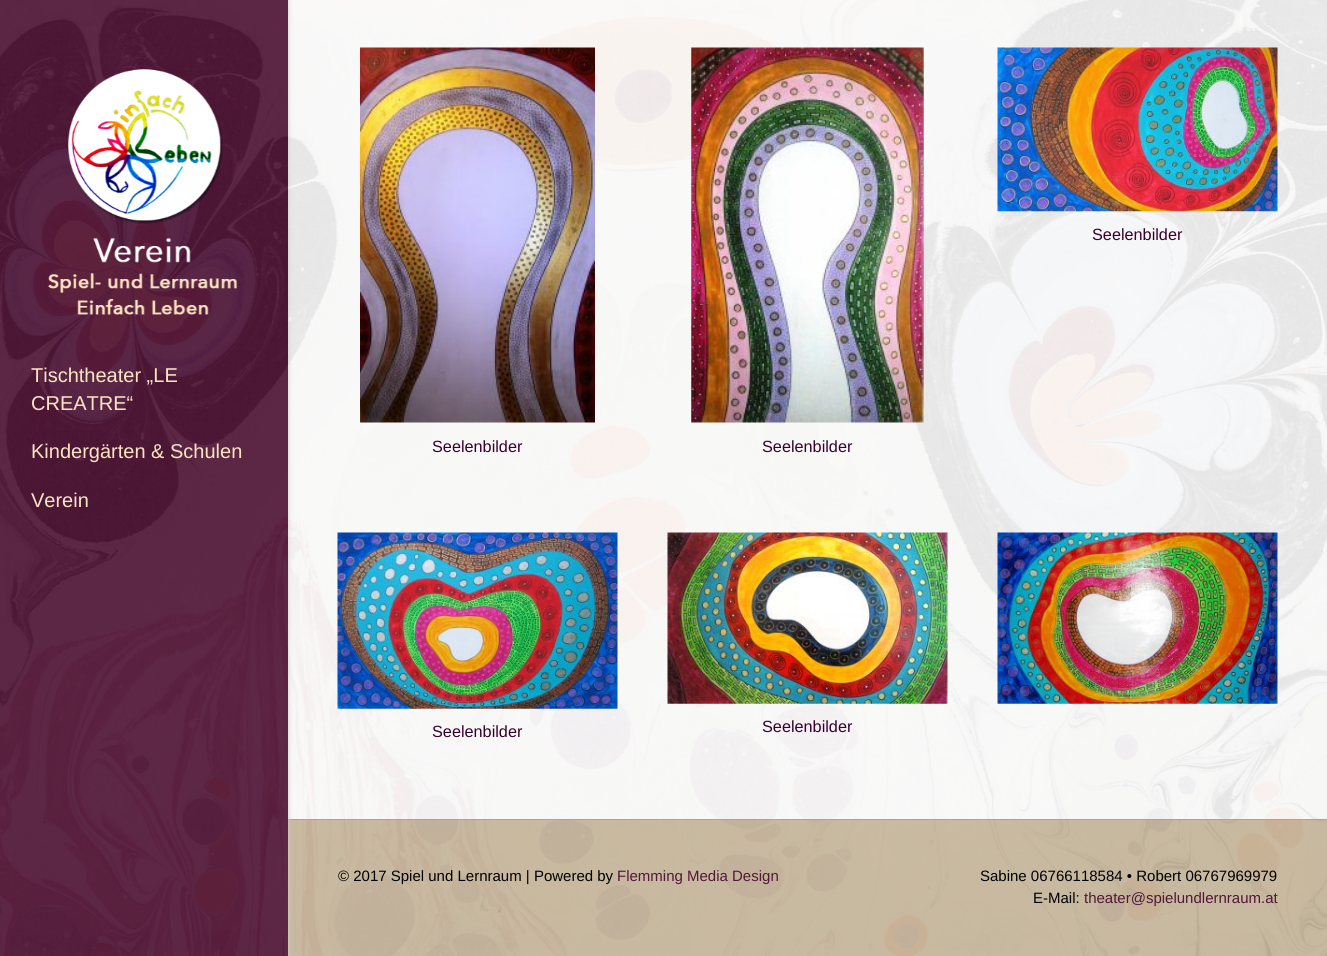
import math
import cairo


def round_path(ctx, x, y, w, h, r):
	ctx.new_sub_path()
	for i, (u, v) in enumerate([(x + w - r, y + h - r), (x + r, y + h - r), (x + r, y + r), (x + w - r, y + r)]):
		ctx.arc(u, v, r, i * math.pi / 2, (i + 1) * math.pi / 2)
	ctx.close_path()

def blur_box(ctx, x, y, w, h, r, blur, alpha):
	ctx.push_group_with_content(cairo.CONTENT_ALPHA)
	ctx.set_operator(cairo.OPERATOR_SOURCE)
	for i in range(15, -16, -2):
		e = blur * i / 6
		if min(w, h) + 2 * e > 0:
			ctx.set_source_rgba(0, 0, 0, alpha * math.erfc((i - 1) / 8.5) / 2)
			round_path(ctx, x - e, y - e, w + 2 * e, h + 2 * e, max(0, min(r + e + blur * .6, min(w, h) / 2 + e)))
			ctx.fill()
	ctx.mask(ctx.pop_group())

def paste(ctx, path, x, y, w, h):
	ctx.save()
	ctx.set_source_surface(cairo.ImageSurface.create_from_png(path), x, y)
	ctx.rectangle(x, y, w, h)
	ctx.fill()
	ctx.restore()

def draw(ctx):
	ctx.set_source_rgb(1, 1, 1)
	ctx.paint()
	paste(ctx, 'media/1.png', 0, 0, 1327, 956)
	ctx.set_source_rgba(1, 1, 1, 0.9)
	ctx.rectangle(288, 0, 1039, 819)
	ctx.fill()
	ctx.set_source_rgba(0.792, 0.729, 0.624, 0.9)
	ctx.rectangle(288, 820, 1039, 136)
	ctx.fill()
	ctx.set_source_rgb(0.722, 0.635, 0.494)
	ctx.rectangle(288, 819, 1039, 1)
	ctx.fill()
	ctx.save()
	ctx.set_fill_rule(cairo.FILL_RULE_EVEN_ODD)
	ctx.new_path()
	ctx.move_to(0, 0)
	ctx.line_to(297, 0)
	ctx.line_to(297, 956)
	ctx.line_to(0, 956)
	ctx.close_path()
	ctx.move_to(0, 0)
	ctx.line_to(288, 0)
	ctx.line_to(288, 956)
	ctx.line_to(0, 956)
	ctx.close_path()
	ctx.clip()
	ctx.set_source_rgb(0.808, 0.808, 0.808)
	blur_box(ctx, 0, 0, 288, 956, 0, 2.5, 1)
	ctx.restore()
	ctx.set_source_rgba(0.325, 0.094, 0.224, 0.9)
	ctx.rectangle(0, 0, 288, 956)
	ctx.fill()
	paste(ctx, 'media/2.png', 48, 69, 189, 246)
	ctx.select_font_face('Liberation Sans')
	ctx.set_font_size(20)
	ctx.set_source_rgb(0.996, 0.902, 0.765)
	for x, y, s in [
		(31, 382, 'Tischtheater „LE'),
		(31, 410, 'CREATRE“'),
		(31, 458, 'Kindergärten & Schulen'),
		(31, 507, 'Verein'),
	]:
		ctx.move_to(x, y)
		ctx.show_text(s)
	paste(ctx, 'media/3.png', 997, 47, 281, 165)
	ctx.set_font_size(16.25)
	ctx.set_source_rgb(0.22, 0, 0.176)
	ctx.move_to(1092, 240)
	ctx.show_text('Seelenbilder')
	paste(ctx, 'media/4.png', 360, 47, 235, 376)
	ctx.move_to(432, 452)
	ctx.show_text('Seelenbilder')
	paste(ctx, 'media/5.png', 691, 47, 233, 376)
	ctx.move_to(762, 452)
	ctx.show_text('Seelenbilder')
	paste(ctx, 'media/6.png', 997, 532, 281, 172)
	paste(ctx, 'media/7.png', 337, 532, 281, 177)
	ctx.move_to(432, 737)
	ctx.show_text('Seelenbilder')
	paste(ctx, 'media/8.png', 667, 532, 281, 172)
	ctx.move_to(762, 732)
	ctx.show_text('Seelenbilder')
	ctx.set_font_size(15)
	ctx.set_source_rgb(0, 0, 0)
	ctx.move_to(338, 881)
	ctx.show_text('© 2017 Spiel und Lernraum | Powered by')
	ctx.set_source_rgb(0.325, 0.094, 0.224)
	ctx.move_to(617, 881)
	ctx.show_text('Flemming Media Design')
	ctx.set_source_rgb(0, 0, 0)
	ctx.move_to(980, 881)
	ctx.show_text('Sabine 06766118584 • Robert 06767969979')
	ctx.move_to(1033, 903)
	ctx.show_text('E-Mail:')
	ctx.set_source_rgb(0.325, 0.094, 0.224)
	ctx.move_to(1084, 903)
	ctx.show_text('theater@spielundlernraum.at')


surface = cairo.ImageSurface(cairo.FORMAT_RGB24, 1327, 956)
ctx = cairo.Context(surface)
options = cairo.FontOptions()
options.set_hint_metrics(cairo.HINT_METRICS_OFF)
options.set_hint_style(cairo.HINT_STYLE_NONE)
ctx.set_font_options(options)
ctx.set_miter_limit(4)
draw(ctx)
surface.write_to_png('image.png')
